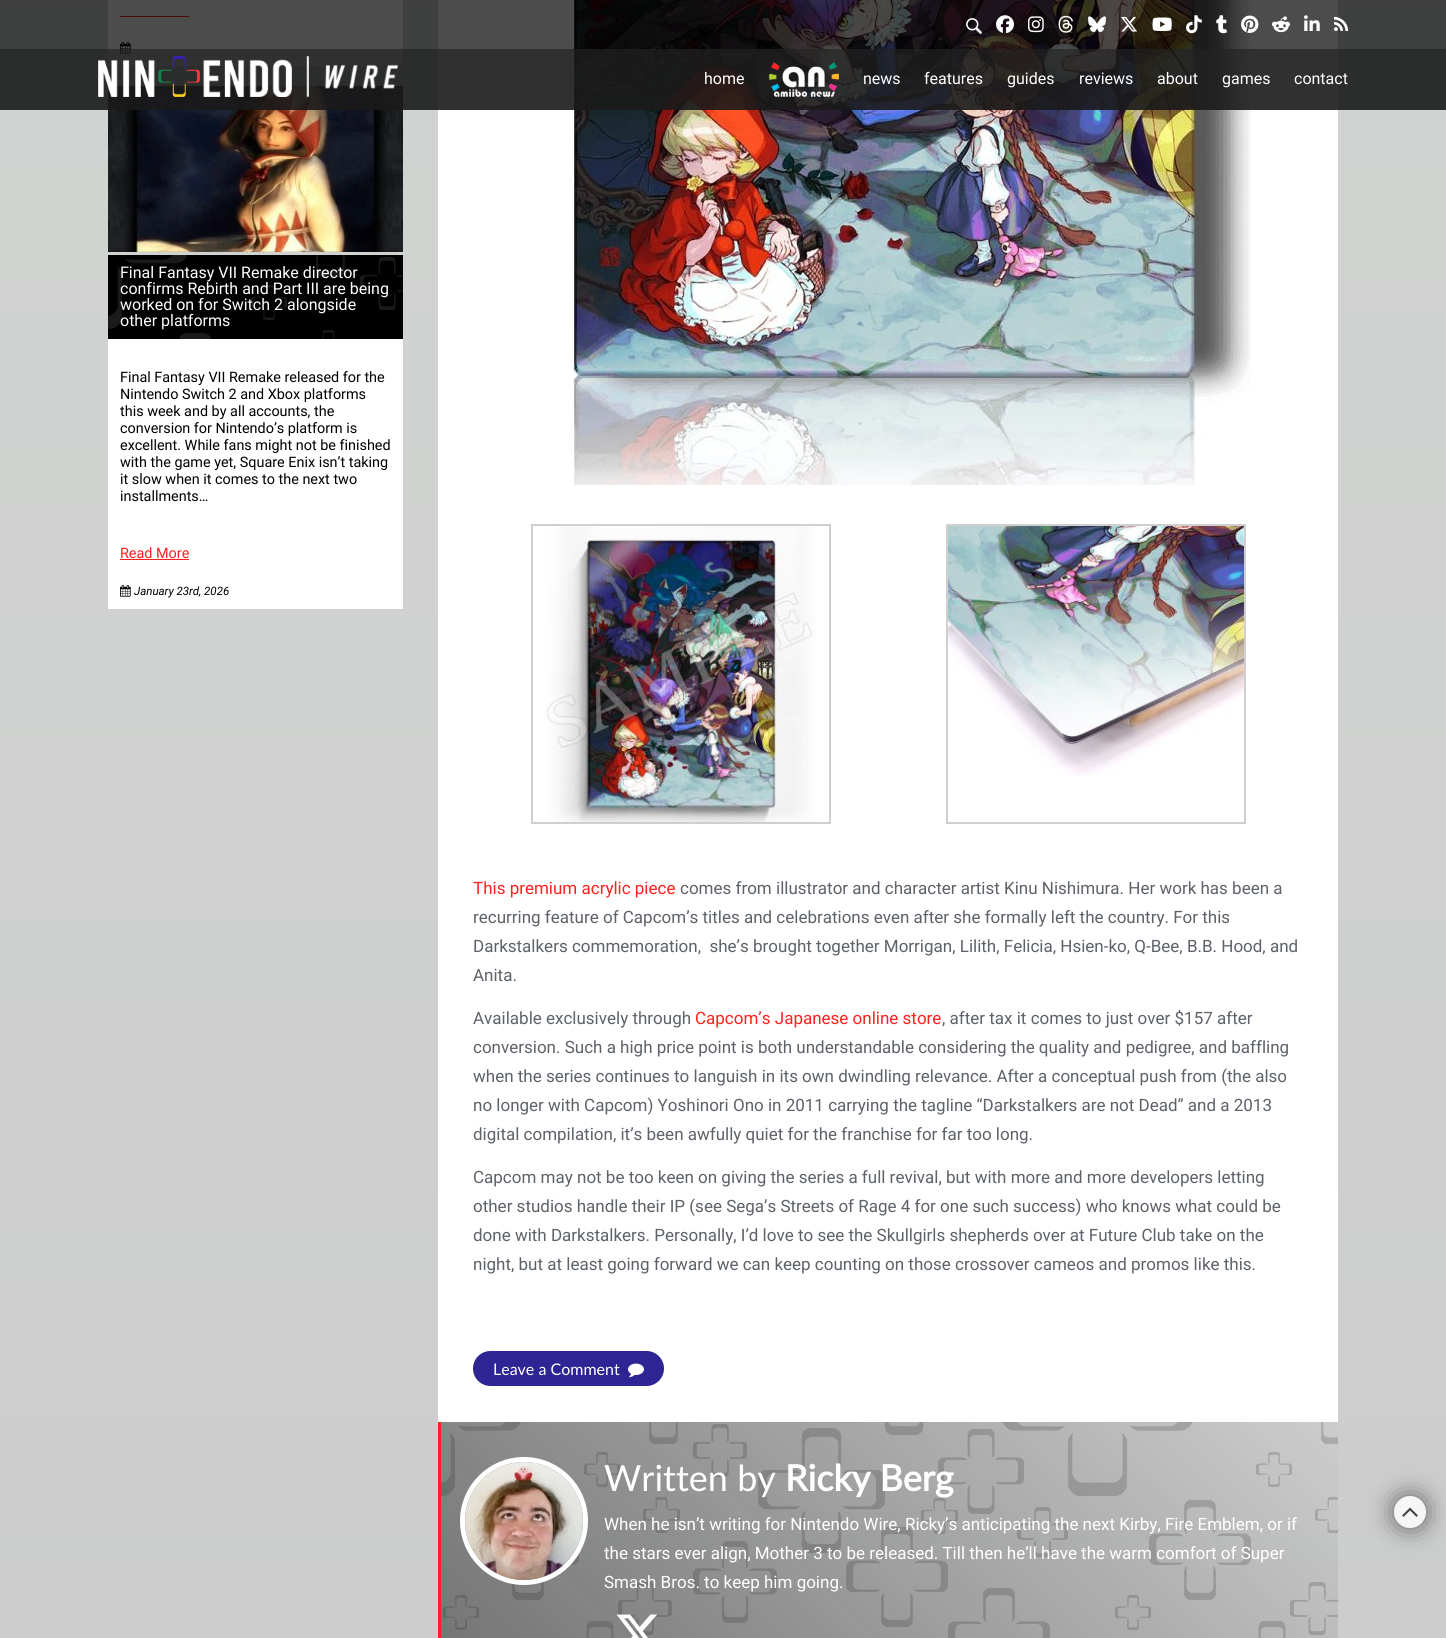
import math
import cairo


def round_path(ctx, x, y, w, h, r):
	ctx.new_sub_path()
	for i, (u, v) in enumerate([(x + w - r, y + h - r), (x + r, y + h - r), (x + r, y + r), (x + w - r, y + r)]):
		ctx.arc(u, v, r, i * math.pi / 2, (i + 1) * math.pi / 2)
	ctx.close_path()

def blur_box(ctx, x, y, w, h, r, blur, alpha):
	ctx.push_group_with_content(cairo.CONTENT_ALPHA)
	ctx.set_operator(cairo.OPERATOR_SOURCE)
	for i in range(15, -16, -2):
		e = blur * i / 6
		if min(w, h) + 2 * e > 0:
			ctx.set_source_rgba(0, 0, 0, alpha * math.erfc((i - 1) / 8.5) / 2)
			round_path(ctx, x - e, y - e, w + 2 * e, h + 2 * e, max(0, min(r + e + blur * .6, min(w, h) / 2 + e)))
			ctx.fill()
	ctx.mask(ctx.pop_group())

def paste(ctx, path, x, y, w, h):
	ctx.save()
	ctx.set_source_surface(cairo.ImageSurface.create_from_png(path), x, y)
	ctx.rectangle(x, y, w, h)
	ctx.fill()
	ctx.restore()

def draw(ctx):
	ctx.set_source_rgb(1, 1, 1)
	ctx.paint()
	gradient = cairo.LinearGradient(723, 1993, 723, -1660)
	gradient.add_color_stop_rgba(0, 0.796, 0.796, 0.796, 1)
	gradient.add_color_stop_rgba(1, 0.843, 0.859, 0.847, 1)
	ctx.set_source(gradient)
	ctx.rectangle(0, 0, 1446, 1638)
	ctx.fill()
	ctx.set_source_rgb(1, 1, 1)
	ctx.rectangle(108, 0, 295, 66)
	ctx.fill()
	ctx.set_source_rgb(1, 0.129, 0.114)
	ctx.rectangle(120, 16, 69, 1)
	ctx.fill()
	paste(ctx, 'media/16.png', 120, 42, 11, 12)
	ctx.set_source_rgb(1, 1, 1)
	ctx.rectangle(438, 0, 900, 1422)
	ctx.fill()
	paste(ctx, 'media/19.png', 572, 0, 679, 485)
	ctx.set_source_rgba(0, 0, 0, 0.7)
	ctx.rectangle(0, 0, 1446, 49)
	ctx.fill()
	paste(ctx, 'media/1.png', 966, 18, 16, 16)
	paste(ctx, 'media/2.png', 996, 15, 18, 19)
	paste(ctx, 'media/3.png', 1028, 16, 16, 17)
	paste(ctx, 'media/4.png', 1058, 15, 15, 18)
	paste(ctx, 'media/5.png', 1088, 16, 18, 17)
	paste(ctx, 'media/6.png', 1121, 16, 16, 16)
	paste(ctx, 'media/7.png', 1152, 17, 20, 14)
	paste(ctx, 'media/8.png', 1186, 15, 16, 19)
	paste(ctx, 'media/9.png', 1216, 15, 11, 19)
	paste(ctx, 'media/10.png', 1241, 15, 18, 18)
	paste(ctx, 'media/11.png', 1272, 16, 18, 17)
	paste(ctx, 'media/12.png', 1304, 15, 16, 16)
	paste(ctx, 'media/13.png', 1334, 16, 15, 15)
	paste(ctx, 'media/17.png', 108, 86, 295, 166)
	ctx.set_source_rgba(0.102, 0.102, 0.102, 0.9)
	ctx.rectangle(0, 49, 1446, 61)
	ctx.fill()
	paste(ctx, 'media/14.png', 98, 56, 300, 41)
	ctx.select_font_face('Roboto')
	ctx.set_font_size(16)
	ctx.set_source_rgb(1, 1, 1)
	ctx.move_to(704, 84)
	ctx.show_text('home')
	paste(ctx, 'media/15.png', 768, 62, 71, 35)
	for x, y, s in [
		(863, 84, 'news'),
		(924, 84, 'features'),
		(1007, 84, 'guides'),
		(1079, 84, 'reviews'),
		(1157, 84, 'about'),
		(1222, 84, 'games'),
		(1294, 84, 'contact'),
	]:
		ctx.move_to(x, y)
		ctx.show_text(s)
	ctx.set_source_rgb(0, 0, 0)
	ctx.rectangle(108, 255, 295, 84)
	ctx.fill()
	paste(ctx, 'media/18.png', 108, 255, 295, 84)
	ctx.set_source_rgb(1, 1, 1)
	for x, y, s in [
		(120, 278, 'Final Fantasy VII Remake director'),
		(120, 294, 'confirms Rebirth and Part III are being'),
		(120, 310, 'worked on for Switch 2 alongside'),
		(120, 326, 'other platforms'),
	]:
		ctx.move_to(x, y)
		ctx.show_text(s)
	ctx.rectangle(108, 339, 295, 270)
	ctx.fill()
	ctx.set_font_size(14.4)
	ctx.set_source_rgb(0, 0, 0)
	for x, y, s in [
		(120, 382, 'Final Fantasy VII Remake released for the'),
		(120, 399, 'Nintendo Switch 2 and Xbox platforms'),
		(120, 416, 'this week and by all accounts, the'),
		(120, 433, 'conversion for Nintendo’s platform is'),
		(120, 450, 'excellent. While fans might not be finished'),
		(120, 467, 'with the game yet, Square Enix isn’t taking'),
		(120, 484, 'it slow when it comes to the next two'),
		(120, 501, 'installments…'),
	]:
		ctx.move_to(x, y)
		ctx.show_text(s)
	ctx.set_source_rgb(1, 0.129, 0.114)
	ctx.move_to(120, 558)
	ctx.show_text('Read More')
	ctx.rectangle(120, 559, 69, 1)
	ctx.fill()
	paste(ctx, 'media/16.png', 120, 585, 11, 12)
	ctx.select_font_face('Roboto', cairo.FONT_SLANT_ITALIC)
	ctx.set_font_size(11.5)
	ctx.set_source_rgb(0, 0, 0)
	ctx.move_to(134, 595)
	ctx.show_text('January 23rd, 2026')
	ctx.rectangle(532, 525, 298, 298)
	ctx.set_source_rgb(0.812, 0.812, 0.812)
	ctx.stroke()
	paste(ctx, 'media/20.png', 544, 526, 273, 296)
	ctx.rectangle(947, 525, 298, 298)
	ctx.stroke()
	paste(ctx, 'media/21.png', 948, 526, 296, 250)
	ctx.select_font_face('Roboto')
	ctx.set_font_size(17)
	ctx.set_source_rgb(1, 0.129, 0.114)
	ctx.move_to(473, 894)
	ctx.show_text('This premium acrylic piece')
	ctx.set_source_rgb(0.365, 0.384, 0.408)
	for x, y, s in [
		(680, 894, 'comes from illustrator and character artist Kinu Nishimura. Her work has been a'),
		(473, 923, 'recurring feature of Capcom’s titles and celebrations even after she formally left the country. For this'),
		(473, 952, 'Darkstalkers commemoration,  she’s brought together Morrigan, Lilith, Felicia, Hsien-ko, Q-Bee, B.B. Hood, and'),
		(473, 981, 'Anita.'),
		(473, 1024, 'Available exclusively through'),
	]:
		ctx.move_to(x, y)
		ctx.show_text(s)
	ctx.set_source_rgb(1, 0.129, 0.114)
	ctx.move_to(695, 1024)
	ctx.show_text('Capcom’s Japanese online store')
	ctx.set_source_rgb(0.365, 0.384, 0.408)
	for x, y, s in [
		(942, 1024, ', after tax it comes to just over $157 after'),
		(473, 1053, 'conversion. Such a high price point is both understandable considering the quality and pedigree, and baffling'),
		(473, 1082, 'when the series continues to languish in its own dwindling relevance. After a conceptual push from (the also'),
		(473, 1111, 'no longer with Capcom) Yoshinori Ono in 2011 carrying the tagline “Darkstalkers are not Dead” and a 2013'),
		(473, 1140, 'digital compilation, it’s been awfully quiet for the franchise for far too long.'),
		(473, 1183, 'Capcom may not be too keen on giving the series a full revival, but with more and more developers letting'),
		(473, 1212, 'other studios handle their IP (see Sega’s Streets of Rage 4 for one such success) who knows what could be'),
		(473, 1241, 'done with Darkstalkers. Personally, I’d love to see the Skullgirls shepherds over at Future Club take on the'),
		(473, 1270, 'night, but at least going forward we can keep counting on those crossover cameos and promos like this.'),
	]:
		ctx.move_to(x, y)
		ctx.show_text(s)
	ctx.set_source_rgb(0.18, 0.141, 0.576)
	round_path(ctx, 473, 1351, 191, 35, 17.5)
	ctx.fill()
	ctx.select_font_face('Lato')
	ctx.set_font_size(16)
	ctx.set_source_rgb(1, 1, 1)
	ctx.move_to(493, 1375)
	ctx.show_text('Leave a Comment')
	paste(ctx, 'media/22.png', 628, 1363, 16, 15)
	paste(ctx, 'media/23.png', 441, 1422, 897, 216)
	ctx.set_source_rgb(1, 0.129, 0.114)
	ctx.rectangle(438, 1422, 3, 216)
	ctx.fill()
	gradient = cairo.LinearGradient(594, 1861, 1185, 1269)
	gradient.add_color_stop_rgba(0, 0.075, 0.075, 0.075, 0.5)
	gradient.add_color_stop_rgba(1, 0.075, 0.075, 0.075, 0)
	ctx.set_source(gradient)
	ctx.rectangle(441, 1422, 897, 216)
	ctx.fill()
	ctx.arc(524, 1521, 61.5, 0, 2 * math.pi)
	ctx.set_source_rgb(1, 1, 1)
	ctx.set_line_width(5)
	ctx.stroke()
	paste(ctx, 'media/24.png', 465, 1462, 118, 118)
	ctx.set_font_size(36)
	ctx.move_to(604, 1491)
	ctx.show_text('Written by')
	ctx.select_font_face('Lato', cairo.FONT_SLANT_NORMAL, cairo.FONT_WEIGHT_BOLD)
	ctx.move_to(785, 1491)
	ctx.show_text('Ricky Berg')
	ctx.select_font_face('Roboto')
	ctx.set_font_size(17)
	for x, y, s in [
		(604, 1530, 'When he isn’t writing for Nintendo Wire, Ricky’s anticipating the next Kirby, Fire Emblem, or if'),
		(604, 1559, 'the stars ever align, Mother 3 to be released. Till then he’ll have the warm comfort of Super'),
		(604, 1588, 'Smash Bros. to keep him going.'),
	]:
		ctx.move_to(x, y)
		ctx.show_text(s)
	paste(ctx, 'media/25.png', 616, 1614, 41, 24)
	ctx.set_source_rgb(0, 0, 0)
	blur_box(ctx, 1394, 1496, 32, 32, 16, 12.5, 0.5)
	ctx.set_source_rgb(0.961, 0.961, 0.961)
	ctx.arc(1410, 1512, 16, 0, 2 * math.pi)
	ctx.fill()
	paste(ctx, 'media/26.png', 1402, 1507, 16, 10)


surface = cairo.ImageSurface(cairo.FORMAT_RGB24, 1446, 1638)
ctx = cairo.Context(surface)
options = cairo.FontOptions()
options.set_hint_metrics(cairo.HINT_METRICS_OFF)
options.set_hint_style(cairo.HINT_STYLE_NONE)
ctx.set_font_options(options)
ctx.set_miter_limit(4)
draw(ctx)
surface.write_to_png('image.png')
